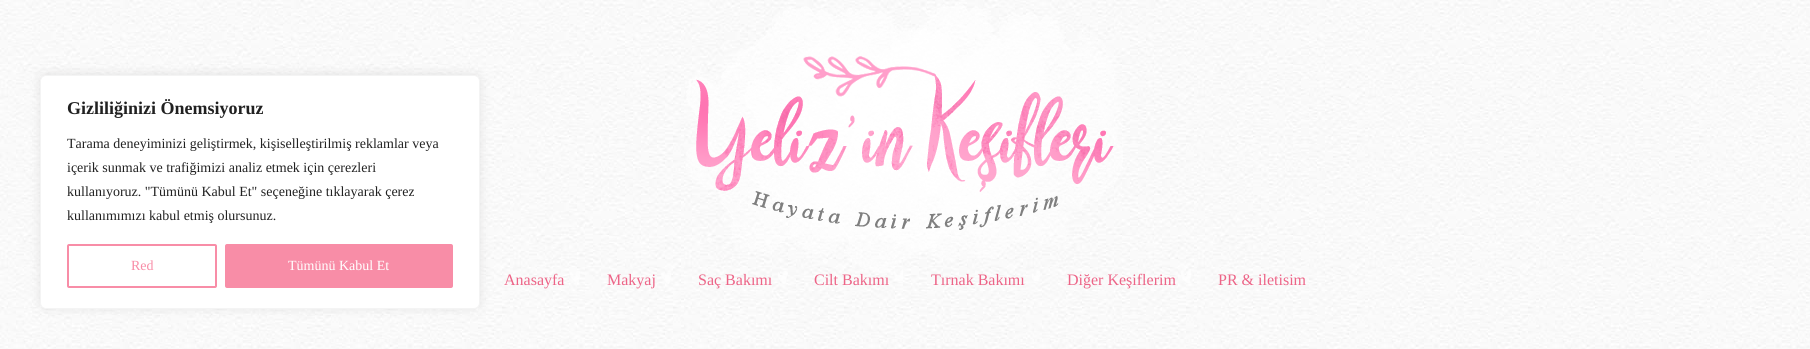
import math
import cairo


def round_path(ctx, x, y, w, h, r):
	ctx.new_sub_path()
	for i, (u, v) in enumerate([(x + w - r, y + h - r), (x + r, y + h - r), (x + r, y + r), (x + w - r, y + r)]):
		ctx.arc(u, v, r, i * math.pi / 2, (i + 1) * math.pi / 2)
	ctx.close_path()

def blur_box(ctx, x, y, w, h, r, blur, alpha):
	ctx.push_group_with_content(cairo.CONTENT_ALPHA)
	ctx.set_operator(cairo.OPERATOR_SOURCE)
	for i in range(15, -16, -2):
		e = blur * i / 6
		if min(w, h) + 2 * e > 0:
			ctx.set_source_rgba(0, 0, 0, alpha * math.erfc((i - 1) / 8.5) / 2)
			round_path(ctx, x - e, y - e, w + 2 * e, h + 2 * e, max(0, min(r + e + blur * .6, min(w, h) / 2 + e)))
			ctx.fill()
	ctx.mask(ctx.pop_group())

def paste(ctx, path, x, y, w, h):
	ctx.save()
	ctx.set_source_surface(cairo.ImageSurface.create_from_png(path), x, y)
	ctx.rectangle(x, y, w, h)
	ctx.fill()
	ctx.restore()

def draw(ctx):
	ctx.set_source_rgb(1, 1, 1)
	ctx.paint()
	paste(ctx, 'media/1.png', 0, 0, 1810, 349)
	ctx.set_source_rgb(0.675, 0.671, 0.671)
	blur_box(ctx, 40, 74, 440, 234, 6, 5, 0.3)
	ctx.set_source_rgb(1, 1, 1)
	round_path(ctx, 40.5, 75.5, 439, 233, 5.5)
	ctx.fill_preserve()
	ctx.set_source_rgb(0.957, 0.957, 0.957)
	ctx.set_line_width(1)
	ctx.stroke()
	ctx.select_font_face('Liberation Serif', cairo.FONT_SLANT_NORMAL, cairo.FONT_WEIGHT_BOLD)
	ctx.set_font_size(18)
	ctx.set_source_rgb(0.129, 0.129, 0.129)
	ctx.move_to(67, 114)
	ctx.show_text('Gizliliğinizi Önemsiyoruz')
	ctx.select_font_face('Liberation Serif')
	ctx.set_font_size(14)
	for x, y, s in [
		(67, 148, 'Tarama deneyiminizi geliştirmek, kişiselleştirilmiş reklamlar veya'),
		(67, 172, 'içerik sunmak ve trafiğimizi analiz etmek için çerezleri'),
		(67, 196, 'kullanıyoruz. "Tümünü Kabul Et" seçeneğine tıklayarak çerez'),
		(67, 220, 'kullanımımızı kabul etmiş olursunuz.'),
	]:
		ctx.move_to(x, y)
		ctx.show_text(s)
	round_path(ctx, 68, 245, 148, 42, 1)
	ctx.set_source_rgb(0.969, 0.553, 0.655)
	ctx.set_line_width(2)
	ctx.stroke()
	ctx.move_to(131, 270)
	ctx.show_text('Red')
	round_path(ctx, 226, 245, 226, 42, 1)
	ctx.fill_preserve()
	ctx.stroke()
	ctx.set_source_rgb(1, 1, 1)
	ctx.move_to(288, 270)
	ctx.show_text('Tümünü Kabul Et')
	paste(ctx, 'media/2.png', 686, 4, 437, 269)
	paste(ctx, 'media/3.png', 696, 56, 418, 174)
	ctx.set_font_size(16)
	ctx.set_source_rgb(0.929, 0.392, 0.529)
	ctx.move_to(504, 285)
	ctx.show_text('Anasayfa')
	paste(ctx, 'media/4.png', 570, 271, 10, 12)
	ctx.move_to(607, 285)
	ctx.show_text('Makyaj')
	paste(ctx, 'media/5.png', 661, 273, 10, 11)
	ctx.move_to(698, 285)
	ctx.show_text('Saç Bakımı')
	paste(ctx, 'media/6.png', 778, 271, 9, 13)
	ctx.move_to(814, 285)
	ctx.show_text('Cilt Bakımı')
	paste(ctx, 'media/7.png', 894, 269, 9, 12)
	ctx.move_to(931, 285)
	ctx.show_text('Tırnak Bakımı')
	paste(ctx, 'media/8.png', 1032, 271, 8, 10)
	ctx.move_to(1067, 285)
	ctx.show_text('Diğer Keşiflerim')
	paste(ctx, 'media/9.png', 1181, 269, 10, 14)
	ctx.move_to(1218, 285)
	ctx.show_text('PR & iletisim')


surface = cairo.ImageSurface(cairo.FORMAT_RGB24, 1810, 349)
ctx = cairo.Context(surface)
options = cairo.FontOptions()
options.set_hint_metrics(cairo.HINT_METRICS_OFF)
options.set_hint_style(cairo.HINT_STYLE_NONE)
ctx.set_font_options(options)
ctx.set_miter_limit(4)
draw(ctx)
surface.write_to_png('image.png')
